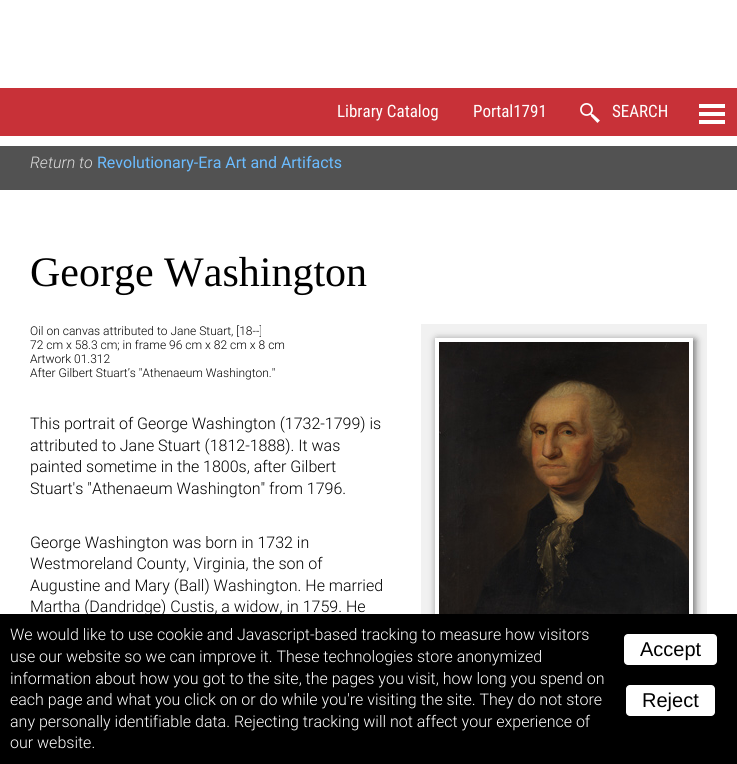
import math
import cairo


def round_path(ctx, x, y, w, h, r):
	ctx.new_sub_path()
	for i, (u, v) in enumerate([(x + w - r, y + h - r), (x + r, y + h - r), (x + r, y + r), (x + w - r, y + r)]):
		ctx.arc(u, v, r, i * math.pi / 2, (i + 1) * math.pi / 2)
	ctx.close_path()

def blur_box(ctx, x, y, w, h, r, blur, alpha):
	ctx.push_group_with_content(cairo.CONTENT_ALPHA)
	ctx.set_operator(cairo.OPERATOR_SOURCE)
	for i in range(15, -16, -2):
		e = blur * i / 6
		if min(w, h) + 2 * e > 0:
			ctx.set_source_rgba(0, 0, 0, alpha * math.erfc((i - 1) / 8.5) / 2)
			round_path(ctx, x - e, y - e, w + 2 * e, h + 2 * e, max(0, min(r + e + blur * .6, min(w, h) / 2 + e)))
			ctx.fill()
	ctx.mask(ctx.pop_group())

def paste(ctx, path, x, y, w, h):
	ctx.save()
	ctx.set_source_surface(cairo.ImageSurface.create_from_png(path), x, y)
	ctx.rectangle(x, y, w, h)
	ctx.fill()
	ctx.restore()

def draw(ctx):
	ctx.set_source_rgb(1, 1, 1)
	ctx.paint()
	ctx.set_source_rgb(0.784, 0.192, 0.22)
	ctx.rectangle(0, 88, 737, 48)
	ctx.fill()
	ctx.select_font_face('Roboto Condensed')
	ctx.set_font_size(17)
	ctx.set_source_rgb(1, 1, 1)
	ctx.move_to(337, 117)
	ctx.show_text('Library Catalog')
	ctx.move_to(473, 117)
	ctx.show_text('Portal1791')
	paste(ctx, 'media/1.png', 580, 103, 20, 20)
	ctx.move_to(612, 117)
	ctx.show_text('SEARCH')
	ctx.rectangle(699, 104, 26, 4)
	ctx.rectangle(699, 112, 26, 4)
	ctx.rectangle(699, 120, 26, 4)
	ctx.fill()
	ctx.set_source_rgb(0.322, 0.322, 0.322)
	ctx.rectangle(0, 146, 737, 44)
	ctx.fill()
	ctx.select_font_face('Roboto Light', cairo.FONT_SLANT_ITALIC)
	ctx.set_font_size(16)
	ctx.set_source_rgb(0.867, 0.867, 0.867)
	ctx.move_to(30, 168)
	ctx.show_text('Return to')
	ctx.select_font_face('Roboto')
	ctx.set_source_rgb(0.42, 0.737, 1)
	ctx.move_to(97, 168)
	ctx.show_text('Revolutionary-Era Art and Artifacts')
	ctx.select_font_face('Liberation Serif')
	ctx.set_font_size(42)
	ctx.set_source_rgb(0, 0, 0)
	ctx.move_to(30, 286)
	ctx.show_text('George Washington')
	ctx.select_font_face('Roboto Light')
	ctx.set_font_size(12)
	for x, y, s in [
		(30, 335, 'Oil on canvas attributed to Jane Stuart, [18--]'),
		(30, 349, '72 cm x 58.3 cm; in frame 96 cm x 82 cm x 8 cm'),
		(30, 363, 'Artwork 01.312'),
		(30, 377, 'After Gilbert Stuart’s "Athenaeum Washington."'),
	]:
		ctx.move_to(x, y)
		ctx.show_text(s)
	ctx.set_source_rgb(0.945, 0.945, 0.945)
	ctx.rectangle(421, 324, 286, 290)
	ctx.fill()
	ctx.set_source_rgb(0.4, 0.4, 0.4)
	blur_box(ctx, 437, 340, 258, 318, 0, 4, 1)
	ctx.rectangle(437, 340, 254, 314)
	ctx.set_source_rgb(1, 1, 1)
	ctx.set_line_width(4)
	ctx.stroke()
	paste(ctx, 'media/2.png', 439, 342, 250, 272)
	ctx.set_font_size(16)
	ctx.set_source_rgb(0, 0, 0)
	for x, y, s in [
		(30, 429, 'This portrait of George Washington (1732-1799) is'),
		(30, 451, 'attributed to Jane Stuart (1812-1888). It was'),
		(30, 472, 'painted sometime in the 1800s, after Gilbert'),
		(30, 494, 'Stuart\'s "Athenaeum Washington" from 1796.'),
		(30, 548, 'George Washington was born in 1732 in'),
		(30, 569, 'Westmoreland County, Virginia, the son of'),
		(30, 591, 'Augustine and Mary (Ball) Washington. He married'),
		(30, 612, 'Martha (Dandridge) Custis, a widow, in 1759. He'),
	]:
		ctx.move_to(x, y)
		ctx.show_text(s)
	ctx.rectangle(0, 614, 737, 150)
	ctx.fill()
	ctx.set_source_rgb(1, 1, 1)
	for x, y, s in [
		(10, 640, 'We would like to use cookie and Javascript-based tracking to measure how visitors'),
		(10, 662, 'use our website so we can improve it. These technologies store anonymized'),
		(10, 684, 'information about how you got to the site, the pages you visit, how long you spend on'),
		(10, 705, 'each page and what you click on or do while you\'re visiting the site. They do not store'),
		(10, 727, 'any personally identifiable data. Rejecting tracking will not affect your experience of'),
		(10, 748, 'our website.'),
	]:
		ctx.move_to(x, y)
		ctx.show_text(s)
	round_path(ctx, 624, 634, 93, 31, 4)
	ctx.fill()
	ctx.select_font_face('Liberation Sans')
	ctx.set_font_size(20)
	ctx.set_source_rgb(0, 0, 0)
	ctx.move_to(640, 656)
	ctx.show_text('Accept')
	ctx.set_source_rgb(1, 1, 1)
	round_path(ctx, 626, 685, 89, 31, 4)
	ctx.fill()
	ctx.set_source_rgb(0, 0, 0)
	ctx.move_to(642, 707)
	ctx.show_text('Reject')


surface = cairo.ImageSurface(cairo.FORMAT_RGB24, 737, 764)
ctx = cairo.Context(surface)
options = cairo.FontOptions()
options.set_hint_metrics(cairo.HINT_METRICS_OFF)
options.set_hint_style(cairo.HINT_STYLE_NONE)
ctx.set_font_options(options)
ctx.set_miter_limit(4)
draw(ctx)
surface.write_to_png('image.png')
